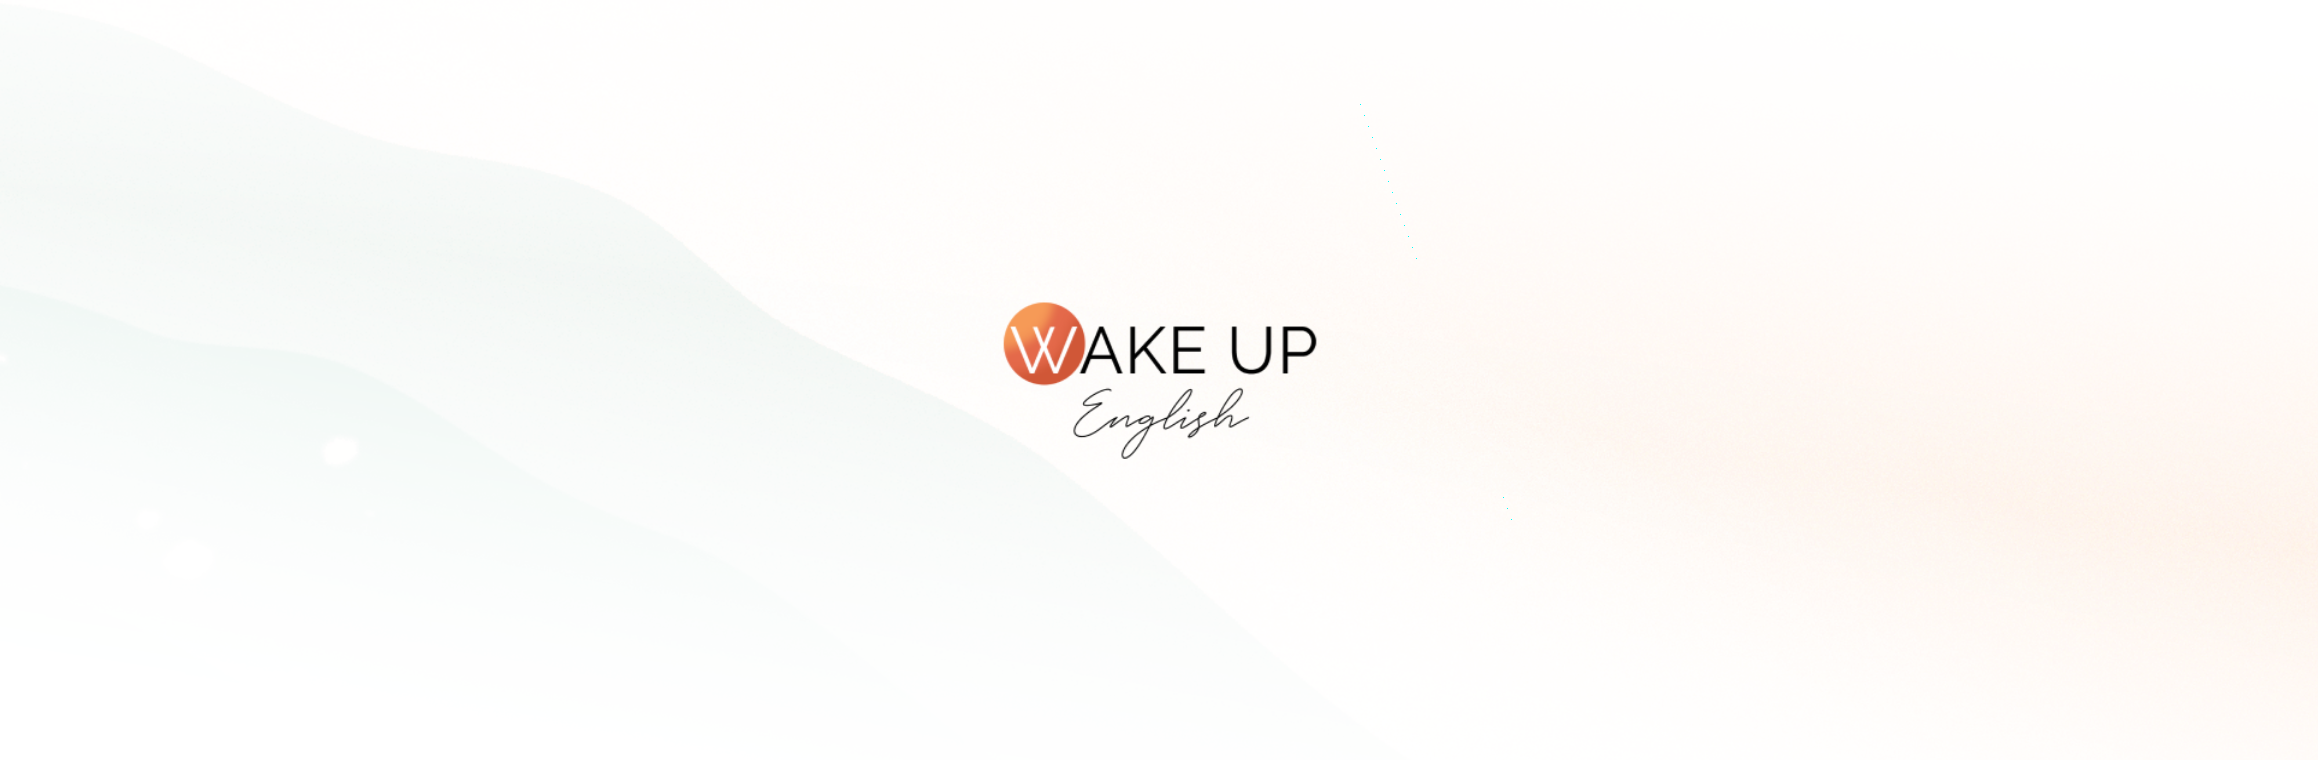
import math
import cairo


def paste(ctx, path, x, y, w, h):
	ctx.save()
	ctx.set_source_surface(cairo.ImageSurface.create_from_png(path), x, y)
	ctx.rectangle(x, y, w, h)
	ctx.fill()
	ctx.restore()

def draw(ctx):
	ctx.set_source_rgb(1, 1, 1)
	ctx.paint()
	paste(ctx, 'media/1.png', 0, 0, 2318, 760)
	paste(ctx, 'media/2.png', 1003, 302, 314, 157)


surface = cairo.ImageSurface(cairo.FORMAT_RGB24, 2318, 760)
ctx = cairo.Context(surface)
options = cairo.FontOptions()
options.set_hint_metrics(cairo.HINT_METRICS_OFF)
options.set_hint_style(cairo.HINT_STYLE_NONE)
ctx.set_font_options(options)
ctx.set_miter_limit(4)
draw(ctx)
surface.write_to_png('image.png')
